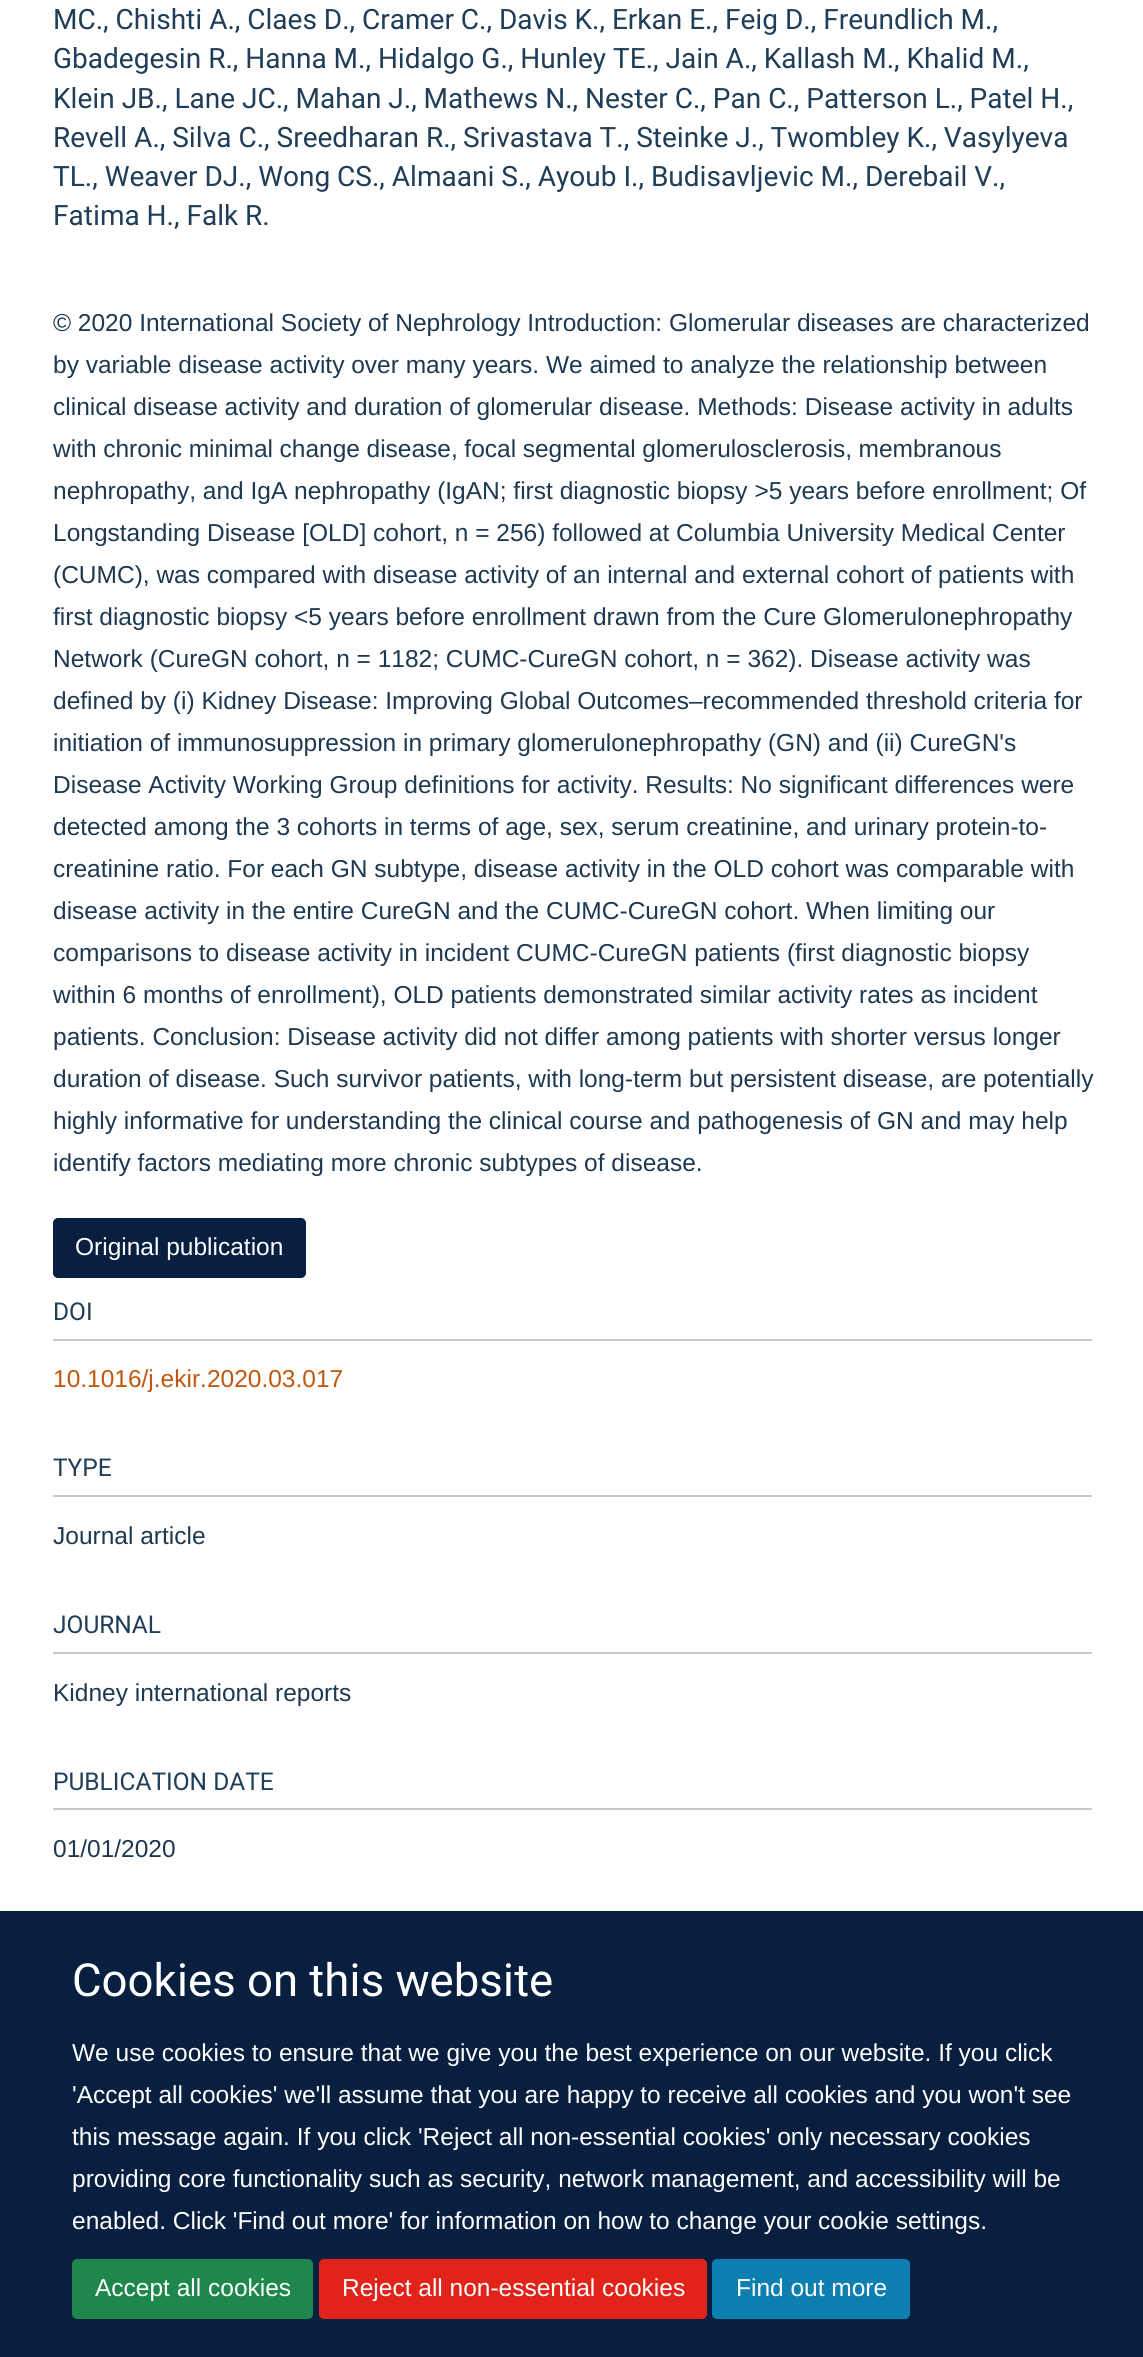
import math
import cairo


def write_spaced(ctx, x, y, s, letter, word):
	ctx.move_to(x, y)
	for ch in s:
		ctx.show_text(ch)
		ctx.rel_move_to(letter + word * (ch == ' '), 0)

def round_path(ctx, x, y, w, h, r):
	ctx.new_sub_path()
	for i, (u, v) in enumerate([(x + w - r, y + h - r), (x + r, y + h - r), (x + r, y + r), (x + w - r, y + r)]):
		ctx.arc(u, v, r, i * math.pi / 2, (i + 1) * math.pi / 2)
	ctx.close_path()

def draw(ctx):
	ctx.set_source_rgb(1, 1, 1)
	ctx.paint()
	ctx.select_font_face('Heebo')
	ctx.set_font_size(28)
	ctx.set_source_rgb(0.125, 0.243, 0.345)
	for x, y, s in [
		(53, 29, 'MC., Chishti A., Claes D., Cramer C., Davis K., Erkan E., Feig D., Freundlich M.,'),
		(53, 68, 'Gbadegesin R., Hanna M., Hidalgo G., Hunley TE., Jain A., Kallash M., Khalid M.,'),
		(53, 108, 'Klein JB., Lane JC., Mahan J., Mathews N., Nester C., Pan C., Patterson L., Patel H.,'),
		(53, 147, 'Revell A., Silva C., Sreedharan R., Srivastava T., Steinke J., Twombley K., Vasylyeva'),
		(53, 186, 'TL., Weaver DJ., Wong CS., Almaani S., Ayoub I., Budisavljevic M., Derebail V.,'),
		(53, 225, 'Fatima H., Falk R.'),
	]:
		ctx.move_to(x, y)
		ctx.show_text(s)
	ctx.select_font_face('Liberation Sans')
	ctx.set_font_size(24.5)
	ctx.set_source_rgb(0.114, 0.22, 0.314)
	for x, y, s in [
		(53, 331, '© 2020 International Society of Nephrology Introduction: Glomerular diseases are characterized'),
		(53, 373, 'by variable disease activity over many years. We aimed to analyze the relationship between'),
		(53, 415, 'clinical disease activity and duration of glomerular disease. Methods: Disease activity in adults'),
	]:
		ctx.move_to(x, y)
		ctx.show_text(s)
	write_spaced(ctx, 53, 457, 'with chronic minimal change disease, focal segmental glomerulosclerosis, membranous', 0, -0.25)
	for x, y, s in [
		(53, 499, 'nephropathy, and IgA nephropathy (IgAN; first diagnostic biopsy >5 years before enrollment; Of'),
		(53, 541, 'Longstanding Disease [OLD] cohort, n = 256) followed at Columbia University Medical Center'),
		(53, 583, '(CUMC), was compared with disease activity of an internal and external cohort of patients with'),
		(53, 625, 'first diagnostic biopsy <5 years before enrollment drawn from the Cure Glomerulonephropathy'),
		(53, 667, 'Network (CureGN cohort, n = 1182; CUMC-CureGN cohort, n = 362). Disease activity was'),
		(53, 709, 'defined by (i) Kidney Disease: Improving Global Outcomes–recommended threshold criteria for'),
		(53, 751, 'initiation of immunosuppression in primary glomerulonephropathy (GN) and (ii) CureGN\'s'),
		(53, 793, 'Disease Activity Working Group definitions for activity. Results: No significant differences were'),
		(53, 835, 'detected among the 3 cohorts in terms of age, sex, serum creatinine, and urinary protein-to-'),
		(53, 877, 'creatinine ratio. For each GN subtype, disease activity in the OLD cohort was comparable with'),
		(53, 919, 'disease activity in the entire CureGN and the CUMC-CureGN cohort. When limiting our'),
		(53, 961, 'comparisons to disease activity in incident CUMC-CureGN patients (first diagnostic biopsy'),
		(53, 1003, 'within 6 months of enrollment), OLD patients demonstrated similar activity rates as incident'),
		(53, 1045, 'patients. Conclusion: Disease activity did not differ among patients with shorter versus longer'),
		(53, 1087, 'duration of disease. Such survivor patients, with long-term but persistent disease, are potentially'),
		(53, 1129, 'highly informative for understanding the clinical course and pathogenesis of GN and may help'),
		(53, 1171, 'identify factors mediating more chronic subtypes of disease.'),
	]:
		ctx.move_to(x, y)
		ctx.show_text(s)
	ctx.set_source_rgb(0.035, 0.122, 0.251)
	round_path(ctx, 54, 1219, 251, 58, 4)
	ctx.fill_preserve()
	ctx.stroke()
	ctx.set_source_rgb(1, 1, 1)
	ctx.move_to(75, 1255)
	ctx.show_text('Original publication')
	ctx.set_source_rgb(0.776, 0.792, 0.812)
	ctx.rectangle(53, 1339, 1039, 2)
	ctx.fill()
	ctx.select_font_face('Heebo')
	ctx.set_source_rgb(0.125, 0.243, 0.345)
	ctx.move_to(53, 1320)
	ctx.show_text('DOI')
	ctx.select_font_face('Liberation Sans')
	ctx.set_source_rgb(0.757, 0.341, 0.055)
	ctx.move_to(53, 1387)
	ctx.show_text('10.1016/j.ekir.2020.03.017')
	ctx.set_source_rgb(0.776, 0.792, 0.812)
	ctx.rectangle(53, 1495, 1039, 2)
	ctx.fill()
	ctx.select_font_face('Heebo')
	ctx.set_source_rgb(0.125, 0.243, 0.345)
	ctx.move_to(53, 1476)
	ctx.show_text('TYPE')
	ctx.select_font_face('Liberation Sans')
	ctx.set_source_rgb(0.114, 0.22, 0.314)
	ctx.move_to(53, 1544)
	ctx.show_text('Journal article')
	ctx.set_source_rgb(0.776, 0.792, 0.812)
	ctx.rectangle(53, 1652, 1039, 2)
	ctx.fill()
	ctx.select_font_face('Heebo')
	ctx.set_source_rgb(0.125, 0.243, 0.345)
	ctx.move_to(53, 1633)
	ctx.show_text('JOURNAL')
	ctx.select_font_face('Liberation Sans')
	ctx.set_source_rgb(0.114, 0.22, 0.314)
	ctx.move_to(53, 1701)
	ctx.show_text('Kidney international reports')
	ctx.set_source_rgb(0.776, 0.792, 0.812)
	ctx.rectangle(53, 1808, 1039, 2)
	ctx.fill()
	ctx.select_font_face('Heebo')
	ctx.set_source_rgb(0.125, 0.243, 0.345)
	ctx.move_to(53, 1790)
	ctx.show_text('PUBLICATION DATE')
	ctx.select_font_face('Liberation Sans')
	ctx.set_source_rgb(0.114, 0.22, 0.314)
	ctx.move_to(53, 1857)
	ctx.show_text('01/01/2020')
	ctx.set_source_rgb(0.035, 0.122, 0.251)
	ctx.rectangle(0, 1911, 1143, 446)
	ctx.fill()
	ctx.select_font_face('Heebo')
	ctx.set_font_size(45.5)
	ctx.set_source_rgb(1, 1, 1)
	ctx.move_to(72, 1996)
	ctx.show_text('Cookies on this website')
	ctx.select_font_face('Liberation Sans')
	ctx.set_font_size(24.5)
	for x, y, s in [
		(72, 2061, 'We use cookies to ensure that we give you the best experience on our website. If you click'),
		(72, 2103, '\'Accept all cookies\' we\'ll assume that you are happy to receive all cookies and you won\'t see'),
		(72, 2145, 'this message again. If you click \'Reject all non-essential cookies\' only necessary cookies'),
		(72, 2187, 'providing core functionality such as security, network management, and accessibility will be'),
		(72, 2229, 'enabled. Click \'Find out more\' for information on how to change your cookie settings.'),
	]:
		ctx.move_to(x, y)
		ctx.show_text(s)
	ctx.set_source_rgb(0.118, 0.529, 0.294)
	round_path(ctx, 73, 2260, 239, 58, 4)
	ctx.fill_preserve()
	ctx.stroke()
	ctx.set_source_rgb(1, 1, 1)
	ctx.move_to(95, 2296)
	ctx.show_text('Accept all cookies')
	ctx.set_source_rgb(0.886, 0.137, 0.102)
	round_path(ctx, 320, 2260, 386, 58, 4)
	ctx.fill_preserve()
	ctx.stroke()
	ctx.set_source_rgb(1, 1, 1)
	ctx.move_to(342, 2296)
	ctx.show_text('Reject all non-essential cookies')
	ctx.set_source_rgb(0.051, 0.494, 0.69)
	round_path(ctx, 713, 2260, 196, 58, 4)
	ctx.fill_preserve()
	ctx.stroke()
	ctx.set_source_rgb(1, 1, 1)
	ctx.move_to(736, 2296)
	ctx.show_text('Find out more')


surface = cairo.ImageSurface(cairo.FORMAT_RGB24, 1143, 2357)
ctx = cairo.Context(surface)
options = cairo.FontOptions()
options.set_hint_metrics(cairo.HINT_METRICS_OFF)
options.set_hint_style(cairo.HINT_STYLE_NONE)
ctx.set_font_options(options)
ctx.set_miter_limit(4)
draw(ctx)
surface.write_to_png('image.png')
